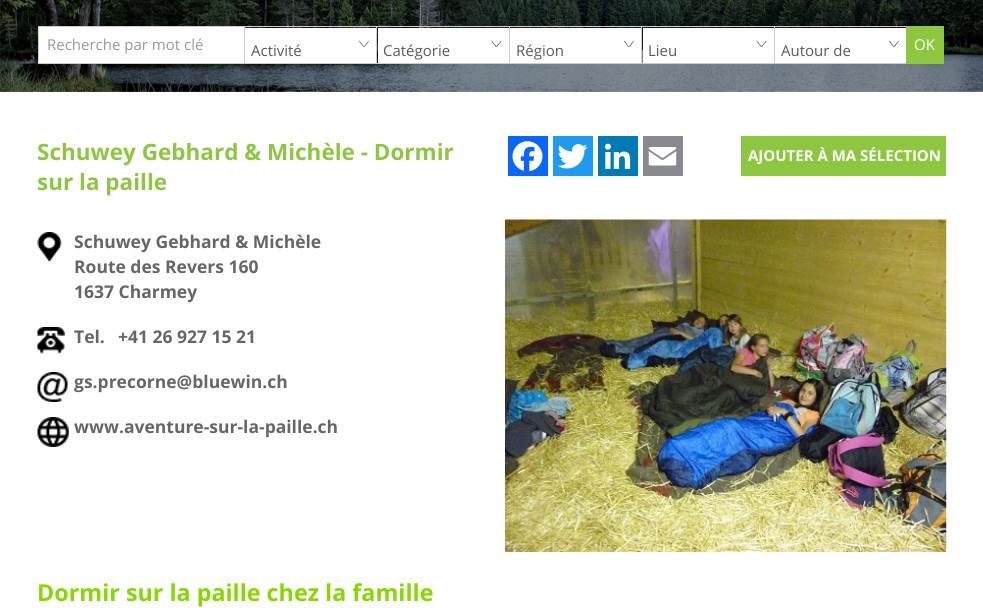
import math
import cairo


def paste(ctx, path, x, y, w, h):
	ctx.save()
	ctx.set_source_surface(cairo.ImageSurface.create_from_png(path), x, y)
	ctx.rectangle(x, y, w, h)
	ctx.fill()
	ctx.restore()

def draw(ctx):
	ctx.set_source_rgb(1, 1, 1)
	ctx.paint()
	paste(ctx, 'media/1.png', 0, 0, 983, 92)
	ctx.set_source_rgb(1, 1, 1)
	ctx.rectangle(39, 27, 205, 36)
	ctx.fill()
	ctx.set_source_rgb(0.804, 0.804, 0.804)
	ctx.rectangle(38, 26, 868, 1)
	ctx.rectangle(38, 63, 868, 1)
	ctx.rectangle(38, 26, 1, 38)
	ctx.fill()
	ctx.select_font_face('Open Sans')
	ctx.set_font_size(15)
	ctx.set_source_rgb(0.6, 0.6, 0.6)
	ctx.move_to(47, 50)
	ctx.show_text('Recherche par mot clé')
	ctx.set_source_rgb(0.804, 0.804, 0.804)
	ctx.rectangle(244, 26, 1, 38)
	ctx.fill()
	ctx.set_source_rgb(1, 1, 1)
	ctx.rectangle(245, 28, 131, 35)
	ctx.fill()
	paste(ctx, 'media/2.png', 358, 40, 11, 7)
	ctx.set_source_rgb(0.353, 0.353, 0.353)
	ctx.move_to(251, 56)
	ctx.show_text('Activité')
	ctx.set_source_rgb(0.804, 0.804, 0.804)
	ctx.rectangle(376, 26, 1, 38)
	ctx.fill()
	ctx.set_source_rgb(1, 1, 1)
	ctx.rectangle(378, 28, 131, 35)
	ctx.fill()
	paste(ctx, 'media/3.png', 491, 40, 11, 7)
	ctx.set_source_rgb(0.353, 0.353, 0.353)
	ctx.move_to(383, 56)
	ctx.show_text('Catégorie')
	ctx.set_source_rgb(0.804, 0.804, 0.804)
	ctx.rectangle(509, 26, 1, 38)
	ctx.fill()
	ctx.set_source_rgb(1, 1, 1)
	ctx.rectangle(510, 28, 131, 35)
	ctx.fill()
	paste(ctx, 'media/4.png', 623, 40, 11, 7)
	ctx.set_source_rgb(0.353, 0.353, 0.353)
	ctx.move_to(516, 56)
	ctx.show_text('Région')
	ctx.set_source_rgb(0.804, 0.804, 0.804)
	ctx.rectangle(641, 26, 1, 38)
	ctx.fill()
	ctx.set_source_rgb(1, 1, 1)
	ctx.rectangle(643, 28, 131, 35)
	ctx.fill()
	paste(ctx, 'media/3.png', 756, 40, 11, 7)
	ctx.set_source_rgb(0.353, 0.353, 0.353)
	ctx.move_to(648, 56)
	ctx.show_text('Lieu')
	ctx.set_source_rgb(0.804, 0.804, 0.804)
	ctx.rectangle(774, 26, 1, 38)
	ctx.fill()
	ctx.set_source_rgb(1, 1, 1)
	ctx.rectangle(775, 28, 131, 35)
	ctx.fill()
	paste(ctx, 'media/2.png', 888, 40, 11, 7)
	ctx.set_source_rgb(0.353, 0.353, 0.353)
	ctx.move_to(781, 56)
	ctx.show_text('Autour de')
	ctx.set_source_rgb(0.553, 0.776, 0.247)
	ctx.rectangle(906, 26, 38, 38)
	ctx.fill()
	ctx.set_source_rgb(1, 1, 1)
	ctx.move_to(914, 50)
	ctx.show_text('OK')
	ctx.select_font_face('Open Sans', cairo.FONT_SLANT_NORMAL, cairo.FONT_WEIGHT_BOLD)
	ctx.set_font_size(22.5)
	ctx.set_source_rgb(0.553, 0.776, 0.247)
	ctx.move_to(37, 160)
	ctx.show_text('Schuwey Gebhard & Michèle - Dormir')
	ctx.move_to(37, 190)
	ctx.show_text('sur la paille')
	ctx.set_source_rgb(0.031, 0.4, 1)
	ctx.rectangle(508, 136, 40, 40)
	ctx.fill()
	paste(ctx, 'media/5.png', 512, 141, 31, 31)
	ctx.set_source_rgb(0.114, 0.608, 0.941)
	ctx.rectangle(553, 136, 40, 40)
	ctx.fill()
	paste(ctx, 'media/6.png', 557, 144, 31, 25)
	ctx.set_source_rgb(0, 0.482, 0.71)
	ctx.rectangle(598, 136, 40, 40)
	ctx.fill()
	paste(ctx, 'media/7.png', 604, 143, 27, 26)
	ctx.set_source_rgb(0.533, 0.537, 0.565)
	ctx.rectangle(643, 136, 40, 40)
	ctx.fill()
	paste(ctx, 'media/8.png', 648, 147, 29, 19)
	ctx.set_source_rgb(0.553, 0.776, 0.247)
	ctx.rectangle(741, 136, 205, 40)
	ctx.fill()
	ctx.set_font_size(15)
	ctx.set_source_rgb(1, 1, 1)
	ctx.move_to(748, 161)
	ctx.show_text('AJOUTER À MA SÉLECTION')
	paste(ctx, 'media/9.png', 37, 232, 25, 30)
	ctx.set_font_size(17.5)
	ctx.set_source_rgb(0.4, 0.4, 0.4)
	for x, y, s in [
		(74, 248, 'Schuwey Gebhard & Michèle'),
		(74, 273, 'Route des Revers 160'),
		(74, 298, '1637 Charmey'),
	]:
		ctx.move_to(x, y)
		ctx.show_text(s)
	paste(ctx, 'media/10.png', 37, 327, 28, 27)
	ctx.move_to(74, 343)
	ctx.show_text('Tel.')
	ctx.move_to(118, 343)
	ctx.show_text('+41 26 927 15 21')
	paste(ctx, 'media/11.png', 37, 372, 31, 30)
	ctx.move_to(74, 388)
	ctx.show_text('gs.precorne@bluewin.ch')
	paste(ctx, 'media/12.png', 37, 417, 32, 30)
	ctx.move_to(74, 433)
	ctx.show_text('www.aventure-sur-la-paille.ch')
	paste(ctx, 'media/13.png', 505, 219, 442, 333)
	ctx.set_font_size(23.3)
	ctx.set_source_rgb(0.525, 0.847, 0)
	ctx.move_to(37, 601)
	ctx.show_text('Dormir sur la paille chez la famille')


surface = cairo.ImageSurface(cairo.FORMAT_RGB24, 983, 612)
ctx = cairo.Context(surface)
options = cairo.FontOptions()
options.set_hint_metrics(cairo.HINT_METRICS_OFF)
options.set_hint_style(cairo.HINT_STYLE_NONE)
ctx.set_font_options(options)
ctx.set_miter_limit(4)
draw(ctx)
surface.write_to_png('image.png')
